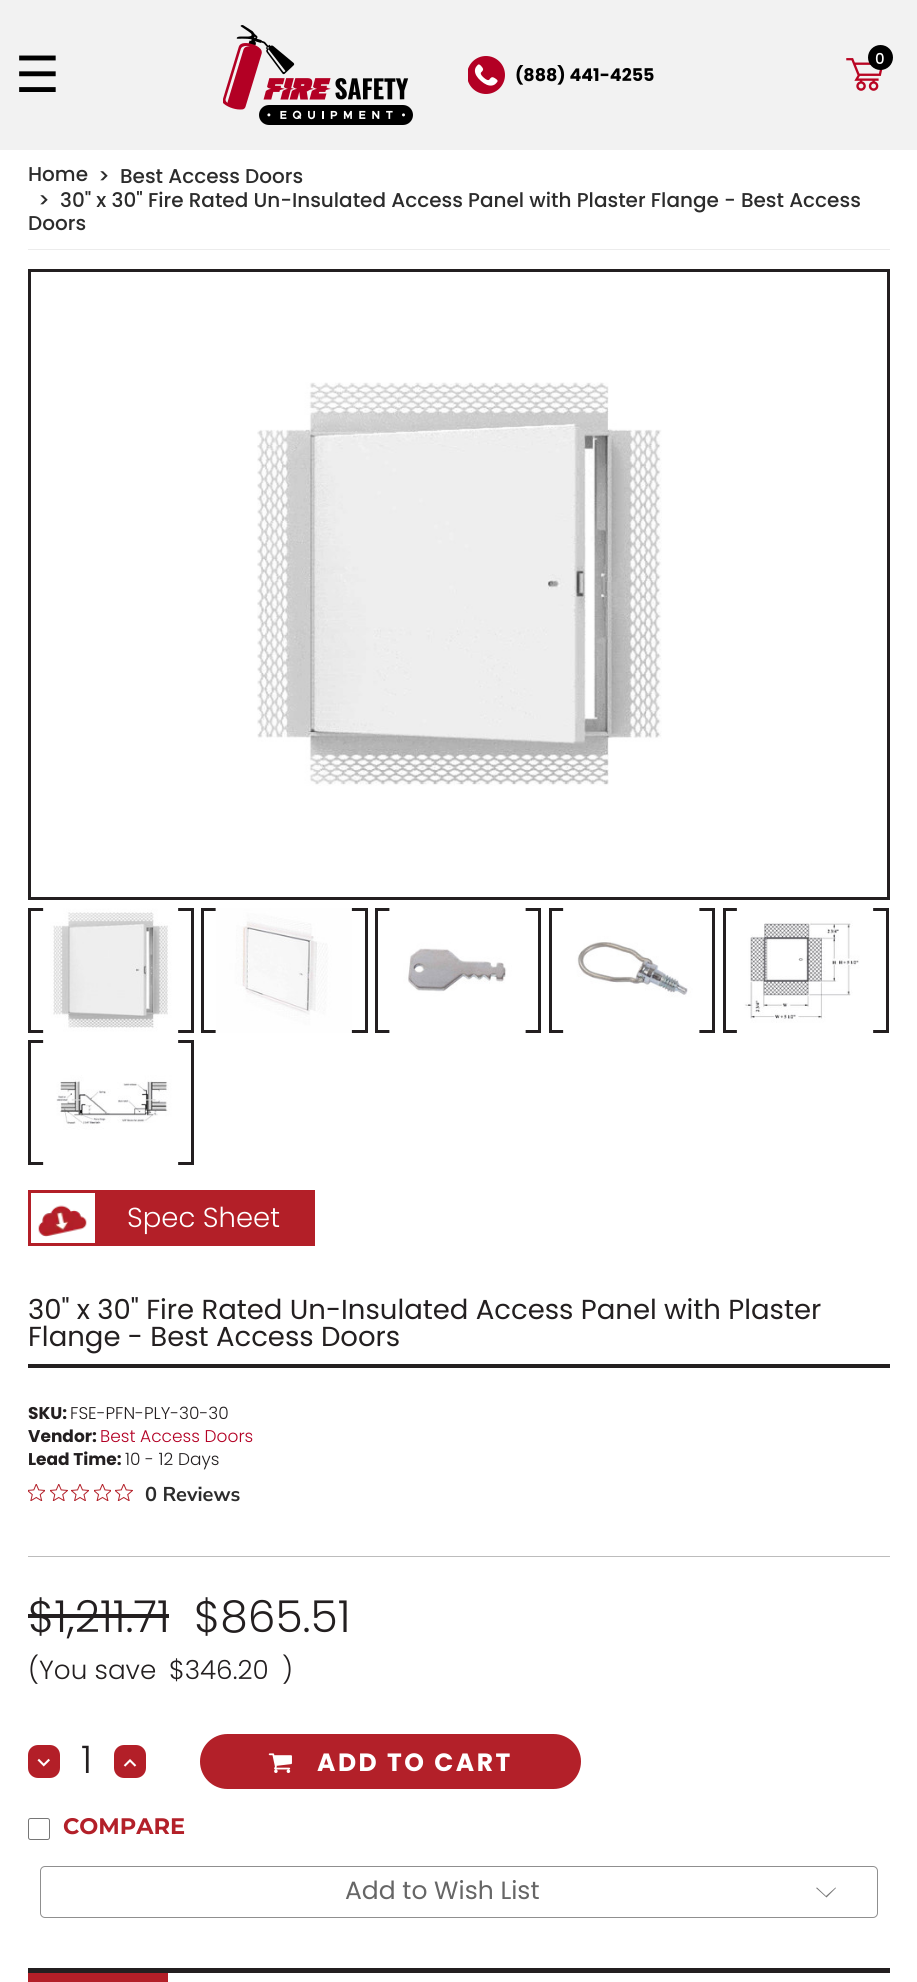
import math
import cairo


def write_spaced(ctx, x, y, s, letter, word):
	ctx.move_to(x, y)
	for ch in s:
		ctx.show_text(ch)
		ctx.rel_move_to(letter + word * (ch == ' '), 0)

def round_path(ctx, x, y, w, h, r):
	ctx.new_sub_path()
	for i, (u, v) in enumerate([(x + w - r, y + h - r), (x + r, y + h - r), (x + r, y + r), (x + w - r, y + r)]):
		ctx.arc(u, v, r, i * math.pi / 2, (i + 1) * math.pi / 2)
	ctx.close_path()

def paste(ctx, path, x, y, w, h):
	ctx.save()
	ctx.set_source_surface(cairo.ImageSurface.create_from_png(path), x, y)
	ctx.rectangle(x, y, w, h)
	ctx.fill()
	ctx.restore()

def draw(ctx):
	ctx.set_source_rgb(1, 1, 1)
	ctx.paint()
	ctx.set_source_rgb(0.949, 0.949, 0.949)
	ctx.rectangle(0, 0, 917, 150)
	ctx.fill()
	ctx.select_font_face('DejaVu Sans')
	ctx.set_font_size(50)
	ctx.set_source_rgb(0, 0, 0)
	ctx.move_to(15, 92)
	ctx.show_text('☰')
	paste(ctx, 'media/1.png', 223, 25, 190, 100)
	paste(ctx, 'media/2.png', 468, 56, 37, 38)
	ctx.select_font_face('Poppins', cairo.FONT_SLANT_NORMAL, cairo.FONT_WEIGHT_BOLD)
	ctx.set_font_size(17.5)
	ctx.move_to(515, 81)
	ctx.show_text('(888) 441-4255')
	paste(ctx, 'media/3.png', 846, 58, 37, 33)
	ctx.arc(880.5, 57.5, 12.5, 0, 2 * math.pi)
	ctx.fill()
	ctx.select_font_face('Poppins Medium')
	ctx.set_font_size(15)
	ctx.set_source_rgb(1, 1, 1)
	ctx.move_to(875, 64)
	ctx.show_text('0')
	ctx.set_source_rgb(0.925, 0.925, 0.925)
	ctx.rectangle(28, 249, 862, 1)
	ctx.fill()
	ctx.set_font_size(20)
	ctx.set_source_rgb(0.173, 0.173, 0.173)
	for x, y, s in [
		(28, 181, 'Home'),
		(98, 183, '>'),
		(120, 183, 'Best Access Doors'),
		(38, 207, '>'),
		(60, 207, '30" x 30" Fire Rated Un-Insulated Access Panel with Plaster Flange - Best Access'),
		(28, 230, 'Doors'),
	]:
		ctx.move_to(x, y)
		ctx.show_text(s)
	ctx.rectangle(29.5, 270.5, 859, 628)
	ctx.set_source_rgb(0.137, 0.122, 0.125)
	ctx.set_line_width(3)
	ctx.stroke()
	paste(ctx, 'media/4.png', 257, 382, 405, 404)
	ctx.rectangle(29.5, 909.5, 163, 122)
	ctx.stroke()
	paste(ctx, 'media/5.png', 43, 908, 136, 125)
	ctx.rectangle(202.5, 909.5, 164, 122)
	ctx.stroke()
	paste(ctx, 'media/6.png', 215, 908, 137, 125)
	ctx.rectangle(376.5, 909.5, 163, 122)
	ctx.stroke()
	paste(ctx, 'media/7.png', 389, 908, 137, 125)
	ctx.rectangle(550.5, 909.5, 163, 122)
	ctx.stroke()
	paste(ctx, 'media/8.png', 563, 908, 137, 125)
	ctx.rectangle(724.5, 909.5, 163, 122)
	ctx.stroke()
	paste(ctx, 'media/9.png', 736, 908, 138, 125)
	ctx.rectangle(29.5, 1041.5, 163, 122)
	ctx.stroke()
	paste(ctx, 'media/10.png', 43, 1040, 136, 125)
	ctx.rectangle(29.5, 1191.5, 284, 53)
	ctx.set_source_rgb(0.702, 0.122, 0.157)
	ctx.stroke()
	paste(ctx, 'media/11.png', 38, 1205, 49, 32)
	ctx.rectangle(95, 1193, 217, 50)
	ctx.fill()
	ctx.select_font_face('Poppins Light')
	ctx.set_font_size(27.5)
	ctx.set_source_rgb(1, 1, 1)
	ctx.move_to(127, 1227)
	ctx.show_text('Spec Sheet')
	ctx.set_source_rgb(0.137, 0.122, 0.125)
	ctx.rectangle(28, 1364, 862, 4)
	ctx.fill()
	ctx.select_font_face('Poppins')
	ctx.move_to(28, 1319)
	ctx.show_text('30" x 30" Fire Rated Un-Insulated Access Panel with Plaster')
	ctx.move_to(28, 1346)
	ctx.show_text('Flange - Best Access Doors')
	ctx.select_font_face('Poppins', cairo.FONT_SLANT_NORMAL, cairo.FONT_WEIGHT_BOLD)
	ctx.set_font_size(17)
	ctx.move_to(28, 1419)
	ctx.show_text('SKU:')
	ctx.select_font_face('Poppins Light')
	ctx.move_to(70, 1419)
	ctx.show_text('FSE-PFN-PLY-30-30')
	ctx.select_font_face('Poppins', cairo.FONT_SLANT_NORMAL, cairo.FONT_WEIGHT_BOLD)
	ctx.move_to(28, 1442)
	ctx.show_text('Vendor:')
	ctx.select_font_face('Poppins Light')
	ctx.set_source_rgb(0.702, 0, 0.141)
	ctx.move_to(100, 1442)
	ctx.show_text('Best Access Doors')
	ctx.select_font_face('Poppins', cairo.FONT_SLANT_NORMAL, cairo.FONT_WEIGHT_BOLD)
	ctx.set_source_rgb(0.137, 0.122, 0.125)
	ctx.move_to(28, 1465)
	ctx.show_text('Lead Time:')
	ctx.select_font_face('Poppins Light')
	ctx.move_to(125, 1465)
	ctx.show_text('10 - 12 Days')
	paste(ctx, 'media/12.png', 28, 1484, 17, 17)
	paste(ctx, 'media/13.png', 50, 1484, 18, 17)
	paste(ctx, 'media/14.png', 71, 1484, 18, 17)
	paste(ctx, 'media/15.png', 94, 1484, 17, 17)
	paste(ctx, 'media/13.png', 115, 1484, 18, 17)
	ctx.select_font_face('Nunito Sans ExtraLight')
	ctx.set_font_size(20)
	ctx.set_source_rgb(0.173, 0.173, 0.173)
	ctx.move_to(145, 1501)
	ctx.show_text('0 Reviews')
	ctx.set_source_rgb(0.737, 0.737, 0.737)
	ctx.rectangle(28, 1556, 862, 1)
	ctx.fill()
	ctx.select_font_face('Poppins Light')
	ctx.set_font_size(44)
	ctx.set_source_rgb(0.137, 0.122, 0.125)
	ctx.move_to(28, 1632)
	ctx.show_text('$1,211.71')
	ctx.rectangle(28, 1614, 141, 4)
	ctx.fill()
	ctx.move_to(194, 1632)
	ctx.show_text('$865.51')
	ctx.set_font_size(26.25)
	for x, y, s in [
		(28, 1679, '(You save'),
		(169, 1679, '$346.20'),
		(282, 1679, ')'),
	]:
		ctx.move_to(x, y)
		ctx.show_text(s)
	ctx.set_source_rgb(0.702, 0.122, 0.157)
	round_path(ctx, 28, 1745, 32, 33, 10)
	ctx.fill()
	paste(ctx, 'media/16.png', 37, 1758, 13, 9)
	ctx.set_font_size(38)
	ctx.set_source_rgb(0.137, 0.122, 0.125)
	ctx.move_to(81, 1773)
	ctx.show_text('1')
	ctx.set_source_rgb(0.702, 0.122, 0.157)
	round_path(ctx, 114, 1745, 32, 33, 10)
	ctx.fill()
	paste(ctx, 'media/17.png', 123, 1759, 14, 8)
	ctx.set_source_rgb(0.702, 0.125, 0.161)
	round_path(ctx, 200, 1734, 381, 55, 27.5)
	ctx.fill()
	paste(ctx, 'media/18.png', 268, 1753, 24, 20)
	ctx.select_font_face('Poppins', cairo.FONT_SLANT_NORMAL, cairo.FONT_WEIGHT_BOLD)
	ctx.set_font_size(25)
	ctx.set_source_rgb(1, 1, 1)
	write_spaced(ctx, 317, 1771, 'ADD TO CART', 2.5, 0)
	round_path(ctx, 28.5, 1818.5, 21, 21, 2)
	ctx.set_source_rgb(0.463, 0.463, 0.463)
	ctx.set_line_width(1)
	ctx.stroke()
	ctx.select_font_face('Montserrat', cairo.FONT_SLANT_NORMAL, cairo.FONT_WEIGHT_BOLD)
	ctx.set_font_size(22.5)
	ctx.set_source_rgb(0.702, 0.125, 0.161)
	ctx.move_to(63, 1834)
	ctx.show_text('COMPARE')
	round_path(ctx, 40.5, 1866.5, 837, 51, 4.5)
	ctx.set_source_rgb(0.561, 0.561, 0.561)
	ctx.stroke()
	ctx.select_font_face('Poppins')
	ctx.set_font_size(25)
	ctx.set_source_rgb(0.4, 0.4, 0.4)
	ctx.move_to(345, 1899)
	ctx.show_text('Add to Wish List')
	ctx.set_source_rgb(0.459, 0.459, 0.459)
	ctx.set_fill_rule(cairo.FILL_RULE_EVEN_ODD)
	ctx.new_path()
	ctx.move_to(826, 1896)
	ctx.line_to(835.5, 1887.5)
	ctx.line_to(836, 1888)
	ctx.line_to(826.5, 1897.5)
	ctx.line_to(816, 1888)
	ctx.line_to(817, 1887.5)
	ctx.close_path()
	ctx.fill()
	ctx.set_source_rgb(0.137, 0.122, 0.125)
	ctx.rectangle(28, 1968, 862, 5)
	ctx.fill()
	ctx.set_source_rgb(0.702, 0.122, 0.157)
	ctx.rectangle(28, 1973, 140, 9)
	ctx.fill()


surface = cairo.ImageSurface(cairo.FORMAT_RGB24, 917, 1982)
ctx = cairo.Context(surface)
options = cairo.FontOptions()
options.set_hint_metrics(cairo.HINT_METRICS_OFF)
options.set_hint_style(cairo.HINT_STYLE_NONE)
ctx.set_font_options(options)
ctx.set_miter_limit(4)
draw(ctx)
surface.write_to_png('image.png')
